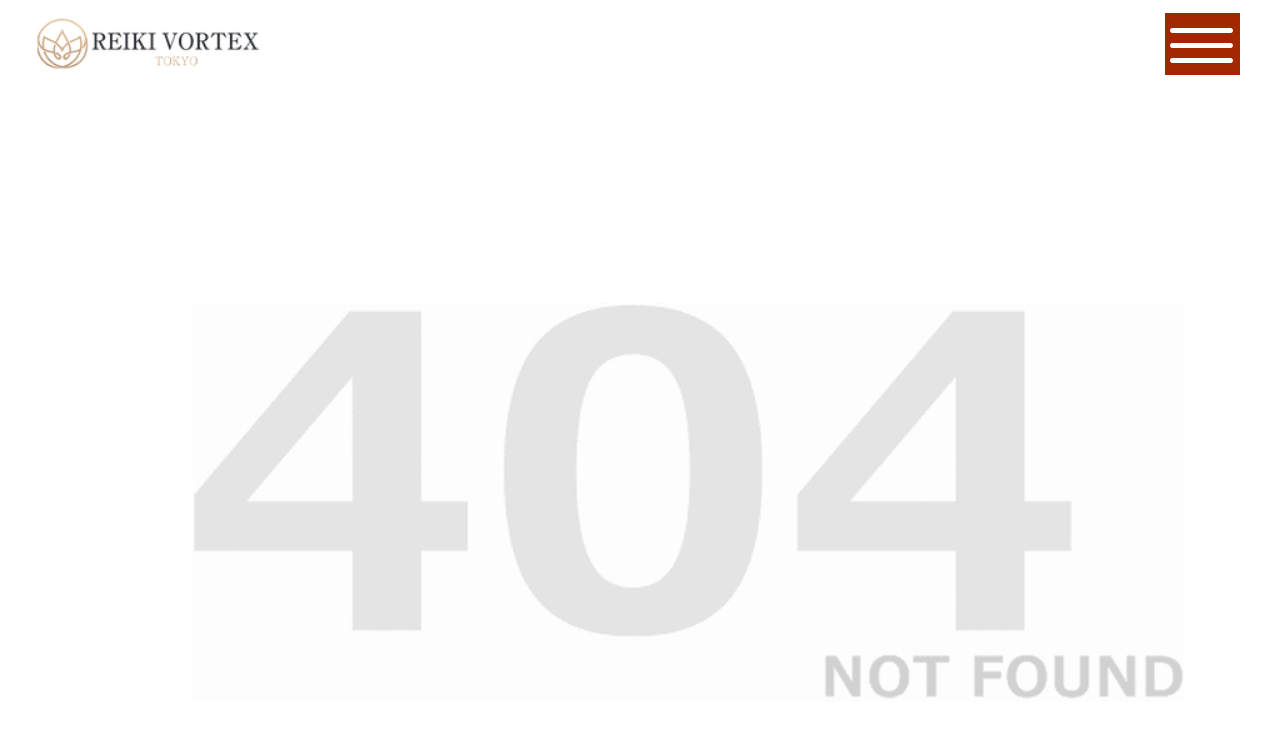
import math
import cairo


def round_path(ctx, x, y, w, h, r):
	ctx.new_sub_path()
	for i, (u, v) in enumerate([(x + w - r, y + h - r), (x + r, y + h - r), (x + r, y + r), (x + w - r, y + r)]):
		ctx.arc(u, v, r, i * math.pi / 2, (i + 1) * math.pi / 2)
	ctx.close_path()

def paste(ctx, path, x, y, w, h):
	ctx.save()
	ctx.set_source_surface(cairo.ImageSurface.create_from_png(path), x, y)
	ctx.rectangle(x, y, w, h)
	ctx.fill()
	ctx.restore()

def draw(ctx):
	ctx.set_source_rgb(1, 1, 1)
	ctx.paint()
	paste(ctx, 'media/1.png', 37, 18, 222, 51)
	ctx.set_source_rgb(0.635, 0.157, 0)
	ctx.rectangle(1165, 13, 75, 62)
	ctx.fill()
	ctx.set_source_rgb(1, 1, 1)
	round_path(ctx, 1170, 28, 63, 5, 2.5)
	ctx.fill()
	round_path(ctx, 1170, 43, 63, 5, 2.5)
	ctx.fill()
	round_path(ctx, 1170, 58, 63, 5, 2.5)
	ctx.fill()
	paste(ctx, 'media/2.png', 193, 303, 991, 399)


surface = cairo.ImageSurface(cairo.FORMAT_RGB24, 1271, 756)
ctx = cairo.Context(surface)
options = cairo.FontOptions()
options.set_hint_metrics(cairo.HINT_METRICS_OFF)
options.set_hint_style(cairo.HINT_STYLE_NONE)
ctx.set_font_options(options)
ctx.set_miter_limit(4)
draw(ctx)
surface.write_to_png('image.png')
